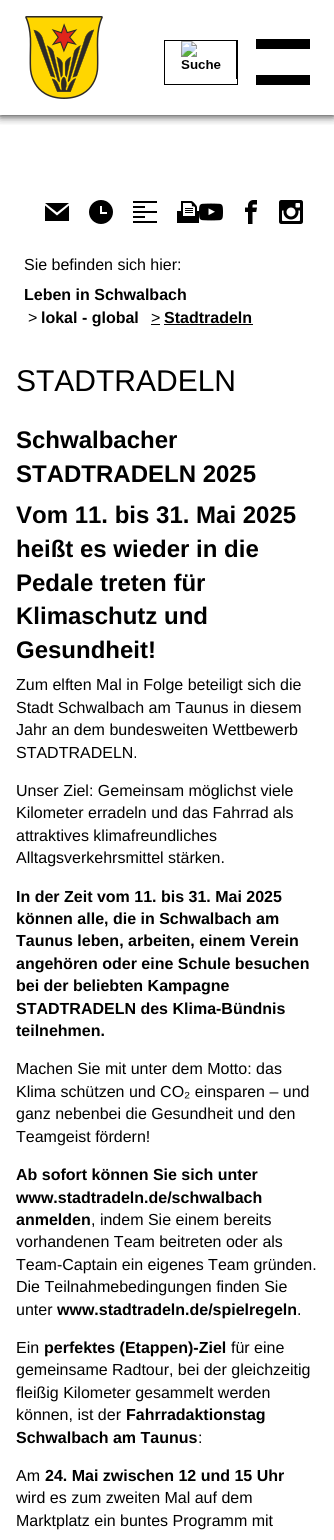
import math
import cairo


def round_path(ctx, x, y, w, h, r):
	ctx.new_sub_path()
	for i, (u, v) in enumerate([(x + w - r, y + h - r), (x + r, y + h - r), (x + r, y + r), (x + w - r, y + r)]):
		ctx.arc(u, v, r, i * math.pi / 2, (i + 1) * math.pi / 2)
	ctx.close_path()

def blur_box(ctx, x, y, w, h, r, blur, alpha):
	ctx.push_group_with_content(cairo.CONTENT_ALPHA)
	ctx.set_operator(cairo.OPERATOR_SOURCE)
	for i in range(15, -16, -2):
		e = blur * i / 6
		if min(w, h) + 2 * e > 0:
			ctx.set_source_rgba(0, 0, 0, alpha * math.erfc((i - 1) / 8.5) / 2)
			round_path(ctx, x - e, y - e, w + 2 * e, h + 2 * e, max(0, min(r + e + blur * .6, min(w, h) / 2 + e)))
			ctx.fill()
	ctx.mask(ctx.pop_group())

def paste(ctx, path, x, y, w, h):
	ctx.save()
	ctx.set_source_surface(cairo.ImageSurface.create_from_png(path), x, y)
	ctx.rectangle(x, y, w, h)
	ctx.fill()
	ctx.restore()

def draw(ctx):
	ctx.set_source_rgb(1, 1, 1)
	ctx.paint()
	ctx.save()
	ctx.rectangle(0, 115, 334, 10)
	ctx.clip()
	ctx.set_source_rgb(0, 0, 0)
	blur_box(ctx, 0, 0, 334, 115, 0, 5, 1)
	ctx.restore()
	ctx.set_source_rgb(0, 0, 0)
	ctx.rectangle(256, 39, 54, 10)
	ctx.fill()
	ctx.rectangle(256, 75, 54, 10)
	ctx.fill()
	paste(ctx, 'media/1.png', 25, 16, 78, 83)
	ctx.rectangle(164.5, 40.5, 73, 44)
	ctx.set_line_width(1)
	ctx.stroke()
	paste(ctx, 'media/2.png', 181, 41, 40, 28)
	ctx.rectangle(236, 41, 1, 38)
	ctx.fill()
	ctx.new_path()
	ctx.move_to(57, 212.5)
	ctx.line_to(45, 203)
	ctx.line_to(69, 203)
	ctx.close_path()
	ctx.move_to(57, 215.5)
	ctx.line_to(45, 205.5)
	ctx.line_to(45, 221)
	ctx.line_to(69, 221)
	ctx.line_to(69, 205.5)
	ctx.close_path()
	ctx.fill()
	paste(ctx, 'media/3.png', 89, 200, 24, 24)
	paste(ctx, 'media/4.png', 133, 201, 24, 22)
	paste(ctx, 'media/5.png', 177, 201, 22, 22)
	paste(ctx, 'media/6.png', 199, 203, 24, 18)
	paste(ctx, 'media/7.png', 245, 200, 12, 24)
	paste(ctx, 'media/8.png', 279, 200, 24, 24)
	ctx.select_font_face('Liberation Sans')
	ctx.set_font_size(16)
	ctx.move_to(24, 270)
	ctx.show_text('Sie befinden sich hier:')
	ctx.select_font_face('Liberation Sans', cairo.FONT_SLANT_NORMAL, cairo.FONT_WEIGHT_BOLD)
	ctx.move_to(24, 300)
	ctx.show_text('Leben in Schwalbach')
	ctx.select_font_face('Liberation Sans')
	ctx.move_to(28, 323)
	ctx.show_text('>')
	ctx.select_font_face('Liberation Sans', cairo.FONT_SLANT_NORMAL, cairo.FONT_WEIGHT_BOLD)
	ctx.move_to(41, 323)
	ctx.show_text('lokal - global')
	ctx.rectangle(151, 324, 9, 1)
	ctx.fill()
	ctx.select_font_face('Liberation Sans')
	ctx.move_to(151, 323)
	ctx.show_text('>')
	ctx.select_font_face('Liberation Sans', cairo.FONT_SLANT_NORMAL, cairo.FONT_WEIGHT_BOLD)
	ctx.move_to(164, 323)
	ctx.show_text('Stadtradeln')
	ctx.rectangle(164, 324, 89, 1)
	ctx.fill()
	ctx.select_font_face('Liberation Sans')
	ctx.set_font_size(30)
	ctx.move_to(16, 391)
	ctx.show_text('STADTRADELN')
	ctx.select_font_face('Liberation Sans', cairo.FONT_SLANT_NORMAL, cairo.FONT_WEIGHT_BOLD)
	ctx.set_font_size(24)
	for x, y, s in [
		(16, 448, 'Schwalbacher'),
		(16, 482, 'STADTRADELN 2025'),
		(16, 523, 'Vom 11. bis 31. Mai 2025'),
		(16, 557, 'heißt es wieder in die'),
		(16, 591, 'Pedale treten für'),
		(16, 624, 'Klimaschutz und'),
		(16, 658, 'Gesundheit!'),
	]:
		ctx.move_to(x, y)
		ctx.show_text(s)
	ctx.select_font_face('Liberation Sans')
	ctx.set_font_size(16)
	for x, y, s in [
		(16, 690, 'Zum elften Mal in Folge beteiligt sich die'),
		(16, 713, 'Stadt Schwalbach am Taunus in diesem'),
		(16, 735, 'Jahr an dem bundesweiten Wettbewerb'),
		(16, 758, 'STADTRADELN.'),
		(16, 796, 'Unser Ziel: Gemeinsam möglichst viele'),
		(16, 818, 'Kilometer erradeln und das Fahrrad als'),
		(16, 841, 'attraktives klimafreundliches'),
		(16, 863, 'Alltagsverkehrsmittel stärken.'),
	]:
		ctx.move_to(x, y)
		ctx.show_text(s)
	ctx.select_font_face('Liberation Sans', cairo.FONT_SLANT_NORMAL, cairo.FONT_WEIGHT_BOLD)
	for x, y, s in [
		(16, 902, 'In der Zeit vom 11. bis 31. Mai 2025'),
		(16, 924, 'können alle, die in Schwalbach am'),
		(16, 946, 'Taunus leben, arbeiten, einem Verein'),
		(16, 969, 'angehören oder eine Schule besuchen'),
		(16, 991, 'bei der beliebten Kampagne'),
		(16, 1014, 'STADTRADELN des Klima-Bündnis'),
		(16, 1036, 'teilnehmen.'),
	]:
		ctx.move_to(x, y)
		ctx.show_text(s)
	ctx.select_font_face('Liberation Sans')
	for x, y, s in [
		(16, 1074, 'Machen Sie mit unter dem Motto: das'),
		(16, 1097, 'Klima schützen und CO₂ einsparen – und'),
		(16, 1119, 'ganz nebenbei die Gesundheit und den'),
		(16, 1142, 'Teamgeist fördern!'),
	]:
		ctx.move_to(x, y)
		ctx.show_text(s)
	ctx.select_font_face('Liberation Sans', cairo.FONT_SLANT_NORMAL, cairo.FONT_WEIGHT_BOLD)
	for x, y, s in [
		(16, 1180, 'Ab sofort können Sie sich unter'),
		(16, 1203, 'www.stadtradeln.de/schwalbach'),
		(16, 1225, 'anmelden'),
	]:
		ctx.move_to(x, y)
		ctx.show_text(s)
	ctx.select_font_face('Liberation Sans')
	for x, y, s in [
		(91, 1225, ', indem Sie einem bereits'),
		(16, 1247, 'vorhandenen Team beitreten oder als'),
		(16, 1270, 'Team-Captain ein eigenes Team gründen.'),
		(16, 1292, 'Die Teilnahmebedingungen finden Sie'),
		(16, 1315, 'unter'),
	]:
		ctx.move_to(x, y)
		ctx.show_text(s)
	ctx.select_font_face('Liberation Sans', cairo.FONT_SLANT_NORMAL, cairo.FONT_WEIGHT_BOLD)
	ctx.move_to(57, 1315)
	ctx.show_text('www.stadtradeln.de/spielregeln')
	ctx.select_font_face('Liberation Sans')
	ctx.move_to(297, 1315)
	ctx.show_text('.')
	ctx.move_to(16, 1353)
	ctx.show_text('Ein')
	ctx.select_font_face('Liberation Sans', cairo.FONT_SLANT_NORMAL, cairo.FONT_WEIGHT_BOLD)
	ctx.move_to(44, 1353)
	ctx.show_text('perfektes (Etappen)-Ziel')
	ctx.select_font_face('Liberation Sans')
	for x, y, s in [
		(231, 1353, 'für eine'),
		(16, 1375, 'gemeinsame Radtour, bei der gleichzeitig'),
		(16, 1398, 'fleißig Kilometer gesammelt werden'),
		(16, 1420, 'können, ist der'),
	]:
		ctx.move_to(x, y)
		ctx.show_text(s)
	ctx.select_font_face('Liberation Sans', cairo.FONT_SLANT_NORMAL, cairo.FONT_WEIGHT_BOLD)
	ctx.move_to(126, 1420)
	ctx.show_text('Fahrradaktionstag')
	ctx.move_to(16, 1443)
	ctx.show_text('Schwalbach am Taunus')
	ctx.select_font_face('Liberation Sans')
	ctx.move_to(198, 1443)
	ctx.show_text(':')
	ctx.move_to(16, 1481)
	ctx.show_text('Am')
	ctx.select_font_face('Liberation Sans', cairo.FONT_SLANT_NORMAL, cairo.FONT_WEIGHT_BOLD)
	ctx.move_to(45, 1481)
	ctx.show_text('24. Mai zwischen 12 und 15 Uhr')
	ctx.select_font_face('Liberation Sans')
	ctx.move_to(16, 1503)
	ctx.show_text('wird es zum zweiten Mal auf dem')
	ctx.move_to(16, 1526)
	ctx.show_text('Marktplatz ein buntes Programm mit')


surface = cairo.ImageSurface(cairo.FORMAT_RGB24, 334, 1540)
ctx = cairo.Context(surface)
options = cairo.FontOptions()
options.set_hint_metrics(cairo.HINT_METRICS_OFF)
options.set_hint_style(cairo.HINT_STYLE_NONE)
ctx.set_font_options(options)
ctx.set_miter_limit(4)
draw(ctx)
surface.write_to_png('image.png')
